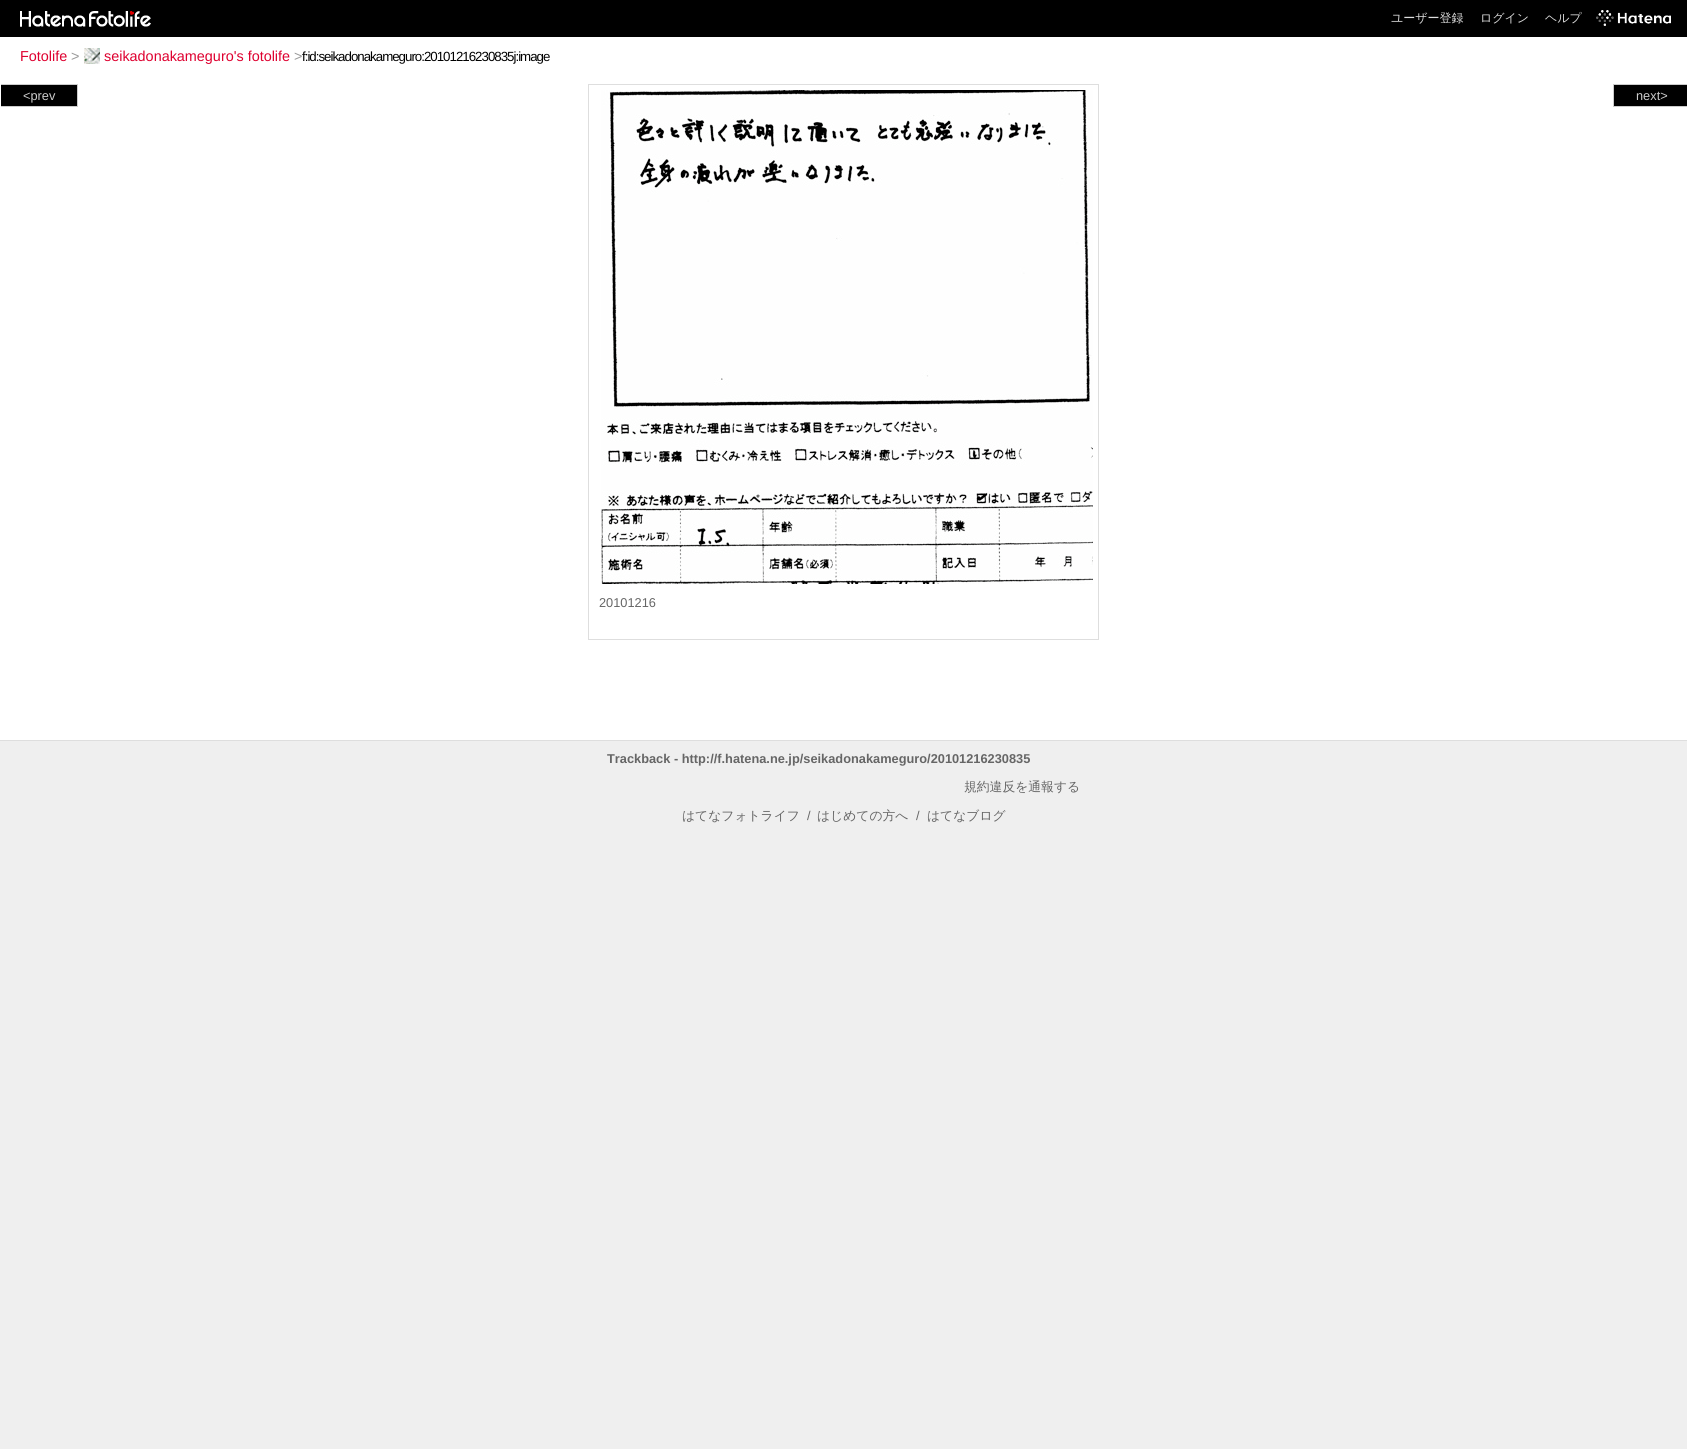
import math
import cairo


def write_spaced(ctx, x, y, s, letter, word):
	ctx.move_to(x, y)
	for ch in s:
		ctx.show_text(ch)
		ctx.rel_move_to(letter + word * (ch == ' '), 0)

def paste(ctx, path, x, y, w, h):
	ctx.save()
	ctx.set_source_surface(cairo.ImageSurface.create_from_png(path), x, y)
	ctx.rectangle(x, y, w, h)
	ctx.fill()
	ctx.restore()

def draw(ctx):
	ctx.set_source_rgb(0.937, 0.937, 0.937)
	ctx.paint()
	ctx.set_source_rgb(0, 0, 0)
	ctx.rectangle(0, 0, 1687, 37)
	ctx.fill()
	paste(ctx, 'media/1.png', 20, 11, 66, 16)
	paste(ctx, 'media/2.png', 89, 11, 62, 16)
	ctx.select_font_face('WenQuanYi Zen Hei Medium')
	ctx.set_font_size(12)
	ctx.set_source_rgb(0.867, 0.867, 0.867)
	for x, y, s in [
		(1391, 22, 'ユーザー登録'),
		(1480, 22, 'ログイン'),
		(1545, 22, 'ヘルプ'),
	]:
		ctx.move_to(x, y)
		ctx.show_text(s)
	paste(ctx, 'media/3.png', 1596, 10, 75, 16)
	ctx.set_source_rgb(1, 1, 1)
	ctx.rectangle(0, 37, 1687, 703)
	ctx.fill()
	ctx.select_font_face('Liberation Sans')
	ctx.set_font_size(14.4)
	ctx.set_source_rgb(0.871, 0, 0.184)
	ctx.move_to(20, 61)
	ctx.show_text('Fotolife')
	ctx.set_source_rgb(0.6, 0.6, 0.6)
	ctx.move_to(71, 61)
	ctx.show_text('>')
	paste(ctx, 'media/4.png', 84, 48, 16, 16)
	ctx.set_source_rgb(0.871, 0, 0.184)
	ctx.move_to(104, 61)
	ctx.show_text('seikadonakameguro\'s fotolife')
	ctx.set_source_rgb(0.6, 0.6, 0.6)
	ctx.move_to(294, 61)
	ctx.show_text('>')
	ctx.set_font_size(13.3)
	ctx.set_source_rgb(0, 0, 0)
	write_spaced(ctx, 302, 61, 'f:id:seikadonakameguro:20101216230835j:image', -1, 0)
	ctx.set_source_rgb(0.871, 0.871, 0.871)
	ctx.rectangle(0, 740, 1687, 1)
	ctx.fill()
	ctx.set_source_rgb(0, 0, 0)
	ctx.rectangle(1, 85, 76, 21)
	ctx.fill()
	ctx.set_source_rgb(0.8, 0.8, 0.8)
	ctx.rectangle(1, 84, 77, 1)
	ctx.rectangle(77, 84, 1, 23)
	ctx.rectangle(1, 106, 77, 1)
	ctx.fill()
	ctx.set_font_size(12.8)
	ctx.move_to(23, 100)
	ctx.show_text('<prev')
	ctx.set_source_rgb(0, 0, 0)
	ctx.rectangle(1614, 85, 73, 21)
	ctx.fill()
	ctx.set_source_rgb(0.8, 0.8, 0.8)
	ctx.rectangle(1613, 84, 74, 1)
	ctx.rectangle(1613, 106, 74, 1)
	ctx.rectangle(1613, 84, 1, 23)
	ctx.fill()
	ctx.move_to(1636, 100)
	ctx.show_text('next>')
	ctx.rectangle(588.5, 84.5, 510, 555)
	ctx.set_source_rgb(0.871, 0.871, 0.871)
	ctx.set_line_width(1)
	ctx.stroke()
	paste(ctx, 'media/5.png', 601, 90, 492, 494)
	ctx.set_source_rgb(0.4, 0.4, 0.4)
	ctx.move_to(599, 607)
	ctx.show_text('20101216')
	ctx.select_font_face('Liberation Sans', cairo.FONT_SLANT_NORMAL, cairo.FONT_WEIGHT_BOLD)
	ctx.move_to(607, 763)
	ctx.show_text('Trackback - http://f.hatena.ne.jp/seikadonakameguro/20101216230835')
	ctx.select_font_face('WenQuanYi Zen Hei Medium')
	ctx.move_to(964, 791)
	ctx.show_text('規約違反を通報する')
	ctx.move_to(682, 820)
	ctx.show_text('はてなフォトライフ')
	ctx.select_font_face('Liberation Sans')
	ctx.move_to(807, 820)
	ctx.show_text('/')
	ctx.select_font_face('WenQuanYi Zen Hei Medium')
	ctx.move_to(817, 820)
	ctx.show_text('はじめての方へ')
	ctx.select_font_face('Liberation Sans')
	ctx.move_to(916, 820)
	ctx.show_text('/')
	ctx.select_font_face('WenQuanYi Zen Hei Medium')
	ctx.move_to(927, 820)
	ctx.show_text('はてなブログ')


surface = cairo.ImageSurface(cairo.FORMAT_RGB24, 1687, 1449)
ctx = cairo.Context(surface)
options = cairo.FontOptions()
options.set_hint_metrics(cairo.HINT_METRICS_OFF)
options.set_hint_style(cairo.HINT_STYLE_NONE)
ctx.set_font_options(options)
ctx.set_miter_limit(4)
draw(ctx)
surface.write_to_png('image.png')
